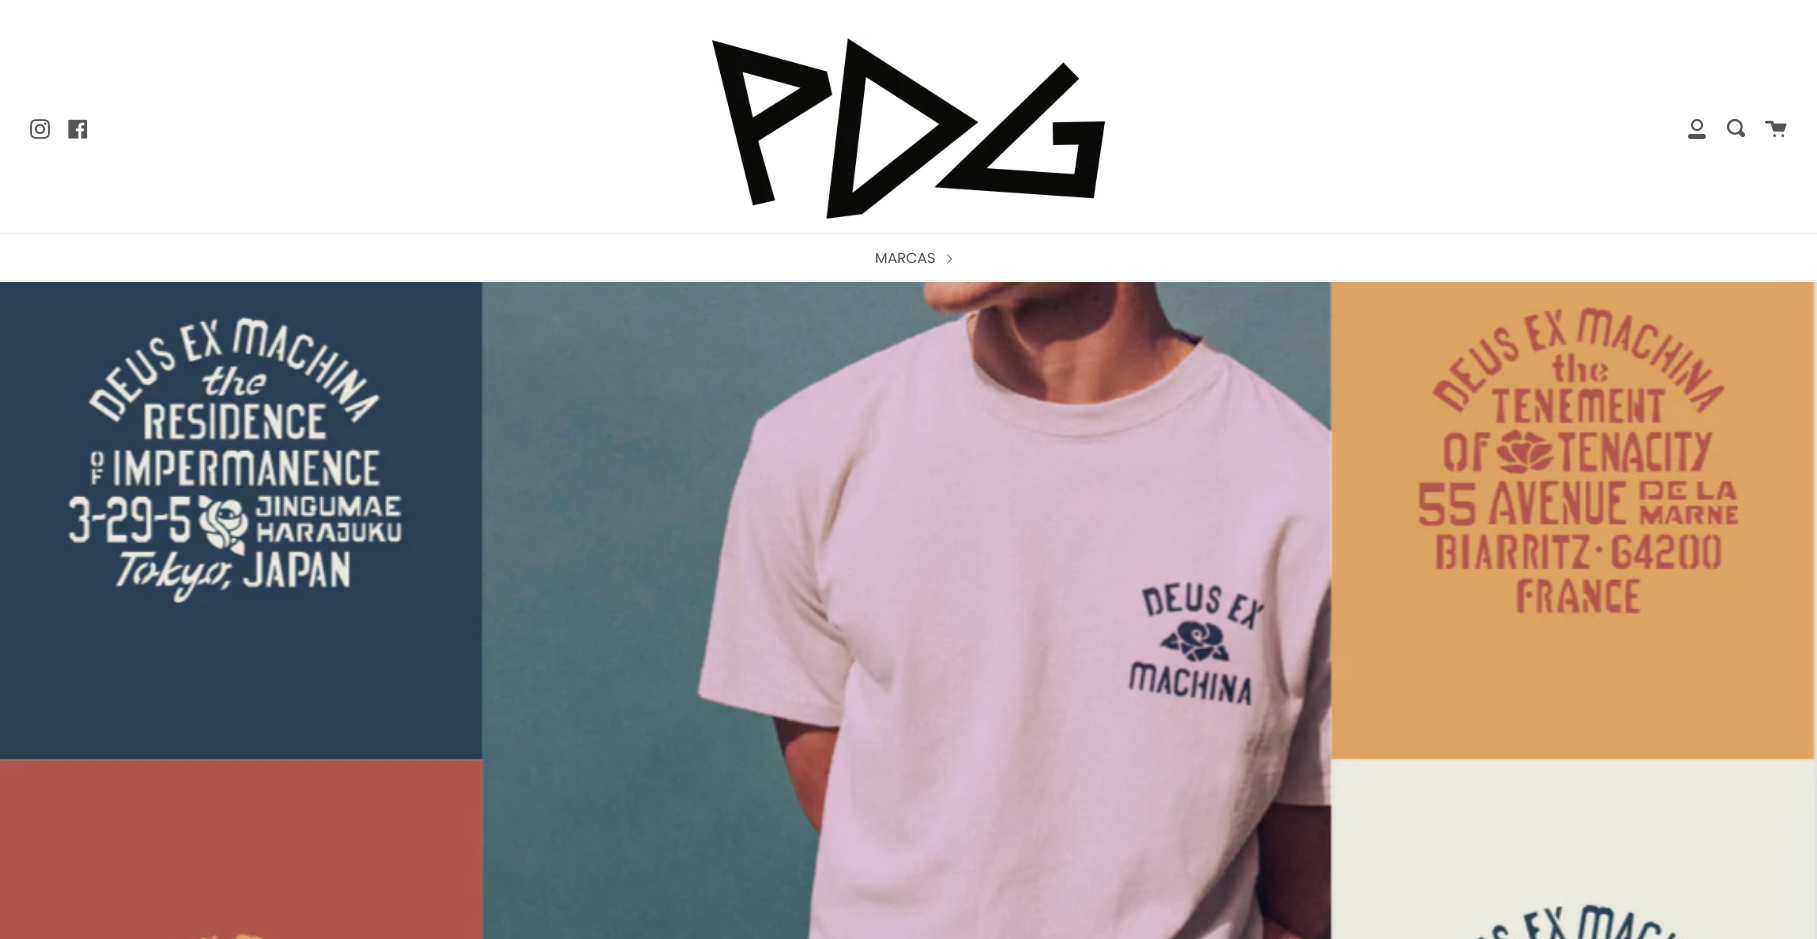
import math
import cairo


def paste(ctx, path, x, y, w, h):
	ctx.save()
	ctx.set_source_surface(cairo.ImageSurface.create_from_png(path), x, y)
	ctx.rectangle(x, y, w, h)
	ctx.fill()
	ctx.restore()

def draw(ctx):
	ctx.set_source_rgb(1, 1, 1)
	ctx.paint()
	paste(ctx, 'media/1.png', 30, 119, 20, 20)
	paste(ctx, 'media/2.png', 68, 119, 20, 20)
	paste(ctx, 'media/3.png', 712, 38, 394, 181)
	paste(ctx, 'media/4.png', 1688, 119, 18, 20)
	paste(ctx, 'media/5.png', 1727, 119, 18, 18)
	paste(ctx, 'media/6.png', 1765, 120, 22, 17)
	ctx.set_source_rgb(0.941, 0.941, 0.941)
	ctx.rectangle(0, 233, 1817, 1)
	ctx.fill()
	ctx.rectangle(0, 280, 1817, 1)
	ctx.fill()
	ctx.select_font_face('Poppins')
	ctx.set_font_size(14.5)
	ctx.set_source_rgb(0.329, 0.329, 0.329)
	ctx.move_to(875, 263)
	ctx.show_text('MARCAS')
	paste(ctx, 'media/7.png', 947, 254, 5, 10)
	paste(ctx, 'media/8.png', 0, 282, 1817, 657)


surface = cairo.ImageSurface(cairo.FORMAT_RGB24, 1817, 939)
ctx = cairo.Context(surface)
options = cairo.FontOptions()
options.set_hint_metrics(cairo.HINT_METRICS_OFF)
options.set_hint_style(cairo.HINT_STYLE_NONE)
ctx.set_font_options(options)
ctx.set_miter_limit(4)
draw(ctx)
surface.write_to_png('image.png')
